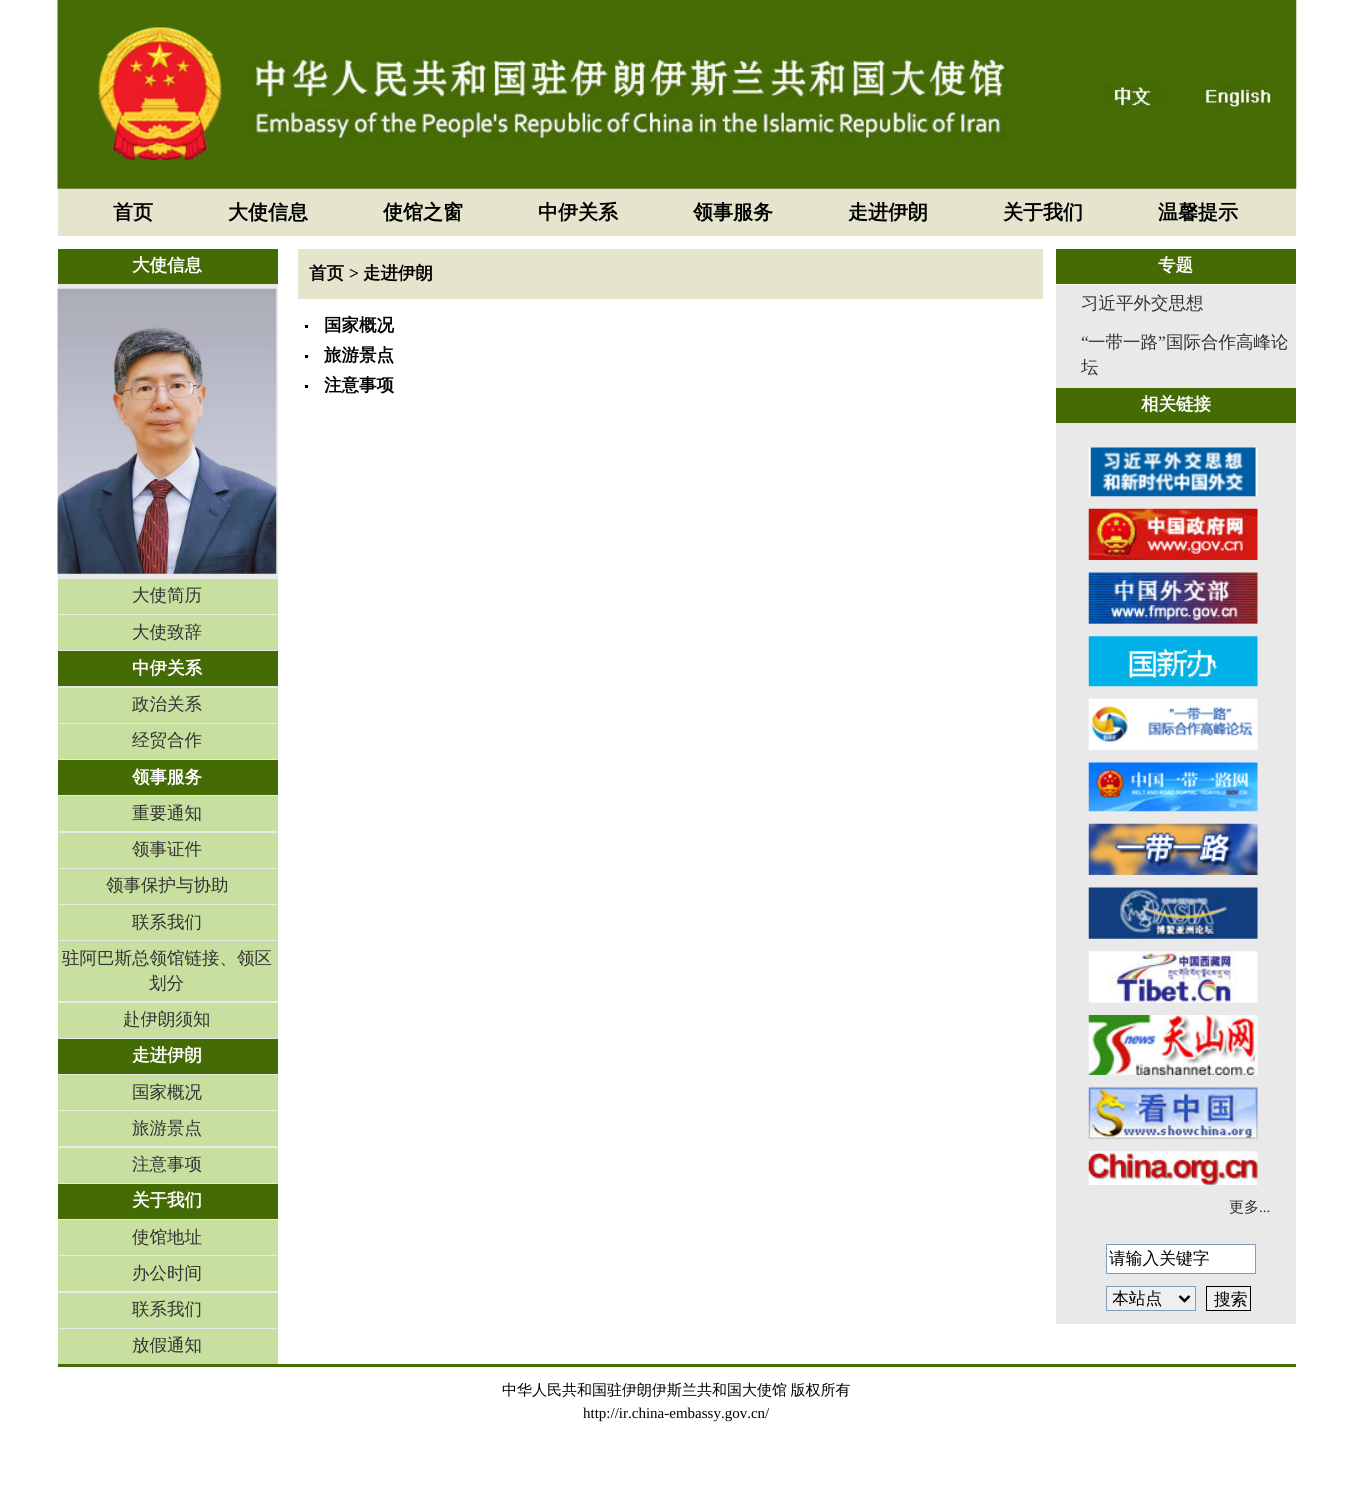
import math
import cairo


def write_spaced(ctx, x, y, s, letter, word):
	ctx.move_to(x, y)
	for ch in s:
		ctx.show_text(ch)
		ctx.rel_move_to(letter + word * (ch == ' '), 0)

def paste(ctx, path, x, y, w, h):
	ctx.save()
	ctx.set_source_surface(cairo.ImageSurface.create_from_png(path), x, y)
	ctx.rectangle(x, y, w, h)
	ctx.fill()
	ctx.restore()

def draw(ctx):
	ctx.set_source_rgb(1, 1, 1)
	ctx.paint()
	paste(ctx, 'media/1.png', 57, 0, 1240, 189)
	ctx.set_source_rgb(0.898, 0.898, 0.804)
	ctx.rectangle(58, 189, 1238, 47)
	ctx.fill()
	ctx.select_font_face('WenQuanYi Zen Hei', cairo.FONT_SLANT_NORMAL, cairo.FONT_WEIGHT_BOLD)
	ctx.set_font_size(20)
	ctx.set_source_rgb(0, 0, 0)
	for x, y, s in [
		(113, 219, '首页'),
		(228, 219, '大使信息'),
		(383, 219, '使馆之窗'),
		(538, 219, '中伊关系'),
		(693, 219, '领事服务'),
		(848, 219, '走进伊朗'),
		(1003, 219, '关于我们'),
		(1158, 219, '温馨提示'),
	]:
		ctx.move_to(x, y)
		ctx.show_text(s)
	ctx.set_source_rgb(0.914, 0.914, 0.914)
	ctx.rectangle(58, 284, 220, 1045)
	ctx.fill()
	ctx.set_source_rgb(0.271, 0.42, 0.016)
	ctx.rectangle(58, 249, 220, 35)
	ctx.fill()
	ctx.set_font_size(17.5)
	ctx.set_source_rgb(1, 1, 1)
	ctx.move_to(132, 271)
	ctx.show_text('大使信息')
	paste(ctx, 'media/2.png', 57, 288, 220, 286)
	ctx.set_source_rgb(0.78, 0.875, 0.624)
	ctx.rectangle(58, 579, 220, 35)
	ctx.fill()
	ctx.select_font_face('WenQuanYi Zen Hei Medium')
	ctx.set_source_rgb(0.2, 0.2, 0.2)
	ctx.move_to(132, 601)
	ctx.show_text('大使简历')
	ctx.set_source_rgb(0.78, 0.875, 0.624)
	ctx.rectangle(58, 615, 220, 35)
	ctx.fill()
	ctx.set_source_rgb(0.2, 0.2, 0.2)
	ctx.move_to(132, 638)
	ctx.show_text('大使致辞')
	ctx.set_source_rgb(0.271, 0.42, 0.016)
	ctx.rectangle(58, 651, 220, 35)
	ctx.fill()
	ctx.select_font_face('WenQuanYi Zen Hei', cairo.FONT_SLANT_NORMAL, cairo.FONT_WEIGHT_BOLD)
	ctx.set_source_rgb(1, 1, 1)
	ctx.move_to(132, 674)
	ctx.show_text('中伊关系')
	ctx.set_source_rgb(0.78, 0.875, 0.624)
	ctx.rectangle(58, 688, 220, 35)
	ctx.fill()
	ctx.select_font_face('WenQuanYi Zen Hei Medium')
	ctx.set_source_rgb(0.2, 0.2, 0.2)
	ctx.move_to(132, 710)
	ctx.show_text('政治关系')
	ctx.set_source_rgb(0.78, 0.875, 0.624)
	ctx.rectangle(58, 724, 220, 35)
	ctx.fill()
	ctx.set_source_rgb(0.2, 0.2, 0.2)
	ctx.move_to(132, 746)
	ctx.show_text('经贸合作')
	ctx.set_source_rgb(0.271, 0.42, 0.016)
	ctx.rectangle(58, 760, 220, 35)
	ctx.fill()
	ctx.select_font_face('WenQuanYi Zen Hei', cairo.FONT_SLANT_NORMAL, cairo.FONT_WEIGHT_BOLD)
	ctx.set_source_rgb(1, 1, 1)
	ctx.move_to(132, 783)
	ctx.show_text('领事服务')
	ctx.set_source_rgb(0.78, 0.875, 0.624)
	ctx.rectangle(58, 796, 220, 35)
	ctx.fill()
	ctx.select_font_face('WenQuanYi Zen Hei Medium')
	ctx.set_source_rgb(0.2, 0.2, 0.2)
	ctx.move_to(132, 819)
	ctx.show_text('重要通知')
	ctx.set_source_rgb(0.78, 0.875, 0.624)
	ctx.rectangle(58, 833, 220, 35)
	ctx.fill()
	ctx.set_source_rgb(0.2, 0.2, 0.2)
	ctx.move_to(132, 855)
	ctx.show_text('领事证件')
	ctx.set_source_rgb(0.78, 0.875, 0.624)
	ctx.rectangle(58, 869, 220, 35)
	ctx.fill()
	ctx.set_source_rgb(0.2, 0.2, 0.2)
	ctx.move_to(106, 891)
	ctx.show_text('领事保护与协助')
	ctx.set_source_rgb(0.78, 0.875, 0.624)
	ctx.rectangle(58, 905, 220, 35)
	ctx.fill()
	ctx.set_source_rgb(0.2, 0.2, 0.2)
	ctx.move_to(132, 928)
	ctx.show_text('联系我们')
	ctx.set_source_rgb(0.78, 0.875, 0.624)
	ctx.rectangle(58, 941, 220, 60)
	ctx.fill()
	ctx.set_source_rgb(0.2, 0.2, 0.2)
	ctx.move_to(62, 964)
	ctx.show_text('驻阿巴斯总领馆链接、领区')
	ctx.move_to(149, 989)
	ctx.show_text('划分')
	ctx.set_source_rgb(0.78, 0.875, 0.624)
	ctx.rectangle(58, 1003, 220, 35)
	ctx.fill()
	ctx.set_source_rgb(0.2, 0.2, 0.2)
	ctx.move_to(123, 1025)
	ctx.show_text('赴伊朗须知')
	ctx.set_source_rgb(0.271, 0.42, 0.016)
	ctx.rectangle(58, 1039, 220, 35)
	ctx.fill()
	ctx.select_font_face('WenQuanYi Zen Hei', cairo.FONT_SLANT_NORMAL, cairo.FONT_WEIGHT_BOLD)
	ctx.set_source_rgb(1, 1, 1)
	ctx.move_to(132, 1061)
	ctx.show_text('走进伊朗')
	ctx.set_source_rgb(0.78, 0.875, 0.624)
	ctx.rectangle(58, 1075, 220, 35)
	ctx.fill()
	ctx.select_font_face('WenQuanYi Zen Hei Medium')
	ctx.set_source_rgb(0.2, 0.2, 0.2)
	ctx.move_to(132, 1098)
	ctx.show_text('国家概况')
	ctx.set_source_rgb(0.78, 0.875, 0.624)
	ctx.rectangle(58, 1111, 220, 35)
	ctx.fill()
	ctx.set_source_rgb(0.2, 0.2, 0.2)
	ctx.move_to(132, 1134)
	ctx.show_text('旅游景点')
	ctx.set_source_rgb(0.78, 0.875, 0.624)
	ctx.rectangle(58, 1148, 220, 35)
	ctx.fill()
	ctx.set_source_rgb(0.2, 0.2, 0.2)
	ctx.move_to(132, 1170)
	ctx.show_text('注意事项')
	ctx.set_source_rgb(0.271, 0.42, 0.016)
	ctx.rectangle(58, 1184, 220, 35)
	ctx.fill()
	ctx.select_font_face('WenQuanYi Zen Hei', cairo.FONT_SLANT_NORMAL, cairo.FONT_WEIGHT_BOLD)
	ctx.set_source_rgb(1, 1, 1)
	ctx.move_to(132, 1206)
	ctx.show_text('关于我们')
	ctx.set_source_rgb(0.78, 0.875, 0.624)
	ctx.rectangle(58, 1220, 220, 35)
	ctx.fill()
	ctx.select_font_face('WenQuanYi Zen Hei Medium')
	ctx.set_source_rgb(0.2, 0.2, 0.2)
	ctx.move_to(132, 1243)
	ctx.show_text('使馆地址')
	ctx.set_source_rgb(0.78, 0.875, 0.624)
	ctx.rectangle(58, 1256, 220, 35)
	ctx.fill()
	ctx.set_source_rgb(0.2, 0.2, 0.2)
	ctx.move_to(132, 1279)
	ctx.show_text('办公时间')
	ctx.set_source_rgb(0.78, 0.875, 0.624)
	ctx.rectangle(58, 1293, 220, 35)
	ctx.fill()
	ctx.set_source_rgb(0.2, 0.2, 0.2)
	ctx.move_to(132, 1315)
	ctx.show_text('联系我们')
	ctx.set_source_rgb(0.78, 0.875, 0.624)
	ctx.rectangle(58, 1329, 220, 35)
	ctx.fill()
	ctx.set_source_rgb(0.2, 0.2, 0.2)
	ctx.move_to(132, 1351)
	ctx.show_text('放假通知')
	ctx.set_source_rgb(0.898, 0.898, 0.804)
	ctx.rectangle(298, 249, 745, 50)
	ctx.fill()
	ctx.select_font_face('WenQuanYi Zen Hei', cairo.FONT_SLANT_NORMAL, cairo.FONT_WEIGHT_BOLD)
	ctx.set_source_rgb(0, 0, 0)
	ctx.move_to(309, 279)
	ctx.show_text('首页')
	ctx.select_font_face('Liberation Serif', cairo.FONT_SLANT_NORMAL, cairo.FONT_WEIGHT_BOLD)
	ctx.move_to(349, 279)
	ctx.show_text('>')
	ctx.select_font_face('WenQuanYi Zen Hei', cairo.FONT_SLANT_NORMAL, cairo.FONT_WEIGHT_BOLD)
	ctx.move_to(363, 279)
	ctx.show_text('走进伊朗')
	ctx.rectangle(305, 325, 3, 3)
	ctx.fill()
	ctx.move_to(324, 331)
	ctx.show_text('国家概况')
	ctx.rectangle(305, 355, 3, 3)
	ctx.fill()
	ctx.move_to(324, 361)
	ctx.show_text('旅游景点')
	ctx.rectangle(305, 385, 3, 3)
	ctx.fill()
	ctx.move_to(324, 391)
	ctx.show_text('注意事项')
	ctx.set_source_rgb(0.914, 0.914, 0.914)
	ctx.rectangle(1056, 285, 240, 1039)
	ctx.fill()
	ctx.set_source_rgb(0.271, 0.42, 0.016)
	ctx.rectangle(1056, 249, 240, 35)
	ctx.fill()
	ctx.set_source_rgb(1, 1, 1)
	ctx.move_to(1158, 271)
	ctx.show_text('专题')
	ctx.select_font_face('WenQuanYi Zen Hei Medium')
	ctx.set_source_rgb(0.2, 0.2, 0.2)
	ctx.move_to(1081, 309)
	ctx.show_text('习近平外交思想')
	ctx.select_font_face('Liberation Serif')
	ctx.move_to(1081, 348)
	ctx.show_text('“')
	ctx.select_font_face('WenQuanYi Zen Hei Medium')
	ctx.move_to(1088, 348)
	ctx.show_text('一带一路')
	ctx.select_font_face('Liberation Serif')
	ctx.move_to(1158, 348)
	ctx.show_text('”')
	ctx.select_font_face('WenQuanYi Zen Hei Medium')
	ctx.move_to(1166, 348)
	ctx.show_text('国际合作高峰论')
	ctx.move_to(1081, 373)
	ctx.show_text('坛')
	ctx.set_source_rgb(0.271, 0.42, 0.016)
	ctx.rectangle(1056, 388, 240, 35)
	ctx.fill()
	ctx.select_font_face('WenQuanYi Zen Hei', cairo.FONT_SLANT_NORMAL, cairo.FONT_WEIGHT_BOLD)
	ctx.set_source_rgb(1, 1, 1)
	ctx.move_to(1141, 410)
	ctx.show_text('相关链接')
	paste(ctx, 'media/3.png', 1088, 447, 170, 50)
	paste(ctx, 'media/4.png', 1088, 508, 170, 52)
	paste(ctx, 'media/5.png', 1088, 572, 170, 52)
	paste(ctx, 'media/6.png', 1088, 636, 170, 51)
	paste(ctx, 'media/7.png', 1088, 698, 170, 52)
	paste(ctx, 'media/8.png', 1088, 762, 170, 50)
	paste(ctx, 'media/9.png', 1088, 823, 170, 52)
	paste(ctx, 'media/10.png', 1088, 887, 170, 52)
	paste(ctx, 'media/11.png', 1088, 951, 170, 52)
	paste(ctx, 'media/12.png', 1088, 1015, 170, 60)
	paste(ctx, 'media/13.png', 1088, 1087, 170, 52)
	paste(ctx, 'media/14.png', 1088, 1151, 170, 34)
	ctx.select_font_face('WenQuanYi Zen Hei Medium')
	ctx.set_font_size(15)
	ctx.set_source_rgb(0.2, 0.2, 0.2)
	ctx.move_to(1229, 1212)
	ctx.show_text('更多')
	ctx.select_font_face('Liberation Serif')
	ctx.move_to(1259, 1212)
	ctx.show_text('...')
	ctx.set_source_rgb(1, 1, 1)
	ctx.rectangle(1106.5, 1244.5, 149, 29)
	ctx.fill_preserve()
	ctx.set_source_rgb(0.498, 0.616, 0.725)
	ctx.set_line_width(1)
	ctx.stroke()
	ctx.select_font_face('WenQuanYi Zen Hei Medium')
	ctx.set_font_size(16.75)
	ctx.set_source_rgb(0, 0, 0)
	ctx.move_to(1109, 1264)
	ctx.show_text('请输入关键字')
	ctx.set_source_rgb(0.937, 0.937, 0.937)
	ctx.rectangle(1106.5, 1286.5, 89, 24)
	ctx.fill_preserve()
	ctx.set_source_rgb(0.498, 0.616, 0.725)
	ctx.stroke()
	ctx.new_path()
	ctx.move_to(1179.5, 1296)
	ctx.line_to(1184.5, 1301)
	ctx.line_to(1189.5, 1296)
	ctx.set_source_rgb(0, 0, 0)
	ctx.set_line_width(2.5)
	ctx.stroke()
	ctx.save()
	ctx.rectangle(1113, 1288, 62, 21)
	ctx.clip()
	ctx.move_to(1112, 1304)
	ctx.show_text('本站点')
	ctx.restore()
	ctx.set_source_rgb(0.937, 0.937, 0.937)
	ctx.rectangle(1206.5, 1286.5, 44, 24)
	ctx.fill_preserve()
	ctx.set_source_rgb(0, 0, 0)
	ctx.set_line_width(1)
	ctx.stroke()
	ctx.move_to(1214, 1305)
	ctx.show_text('搜索')
	ctx.set_source_rgb(0.271, 0.42, 0.016)
	ctx.rectangle(58, 1364, 1238, 3)
	ctx.fill()
	ctx.set_font_size(15)
	ctx.set_source_rgb(0, 0, 0)
	write_spaced(ctx, 502, 1395, '中华人民共和国驻伊朗伊斯兰共和国大使馆 版权所有', 0, -1)
	ctx.select_font_face('Liberation Serif')
	ctx.move_to(583, 1418)
	ctx.show_text('http://ir.china-embassy.gov.cn/')


surface = cairo.ImageSurface(cairo.FORMAT_RGB24, 1352, 1505)
ctx = cairo.Context(surface)
options = cairo.FontOptions()
options.set_hint_metrics(cairo.HINT_METRICS_OFF)
options.set_hint_style(cairo.HINT_STYLE_NONE)
ctx.set_font_options(options)
ctx.set_miter_limit(4)
draw(ctx)
surface.write_to_png('image.png')
